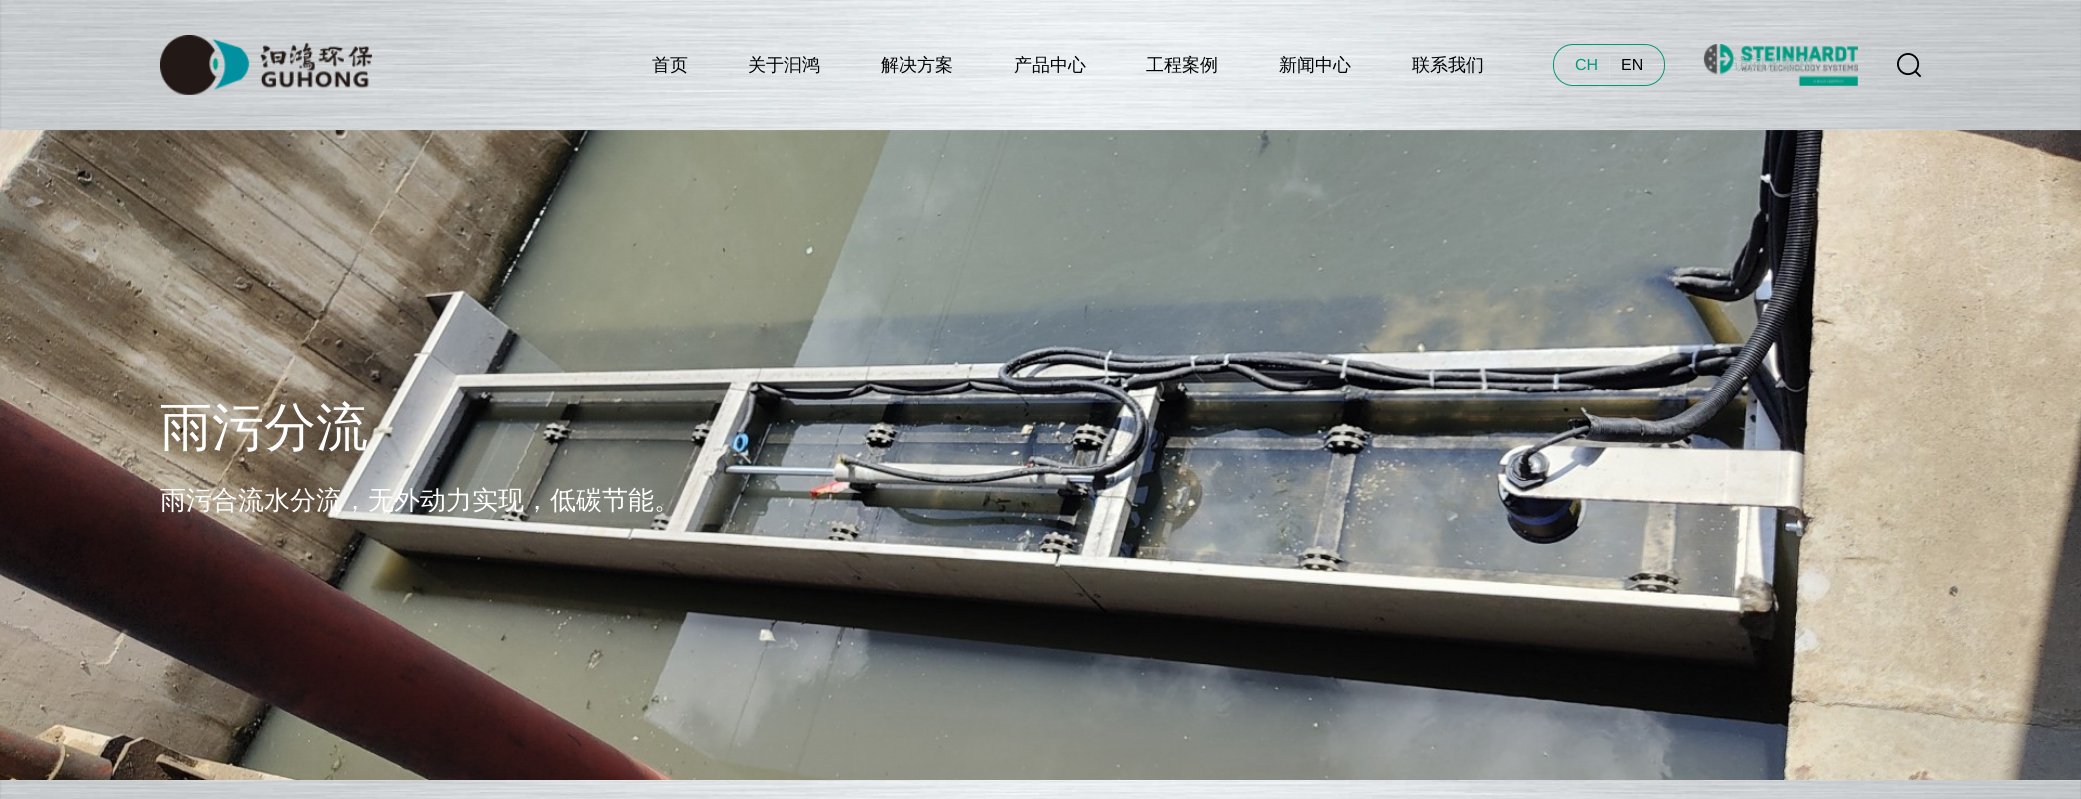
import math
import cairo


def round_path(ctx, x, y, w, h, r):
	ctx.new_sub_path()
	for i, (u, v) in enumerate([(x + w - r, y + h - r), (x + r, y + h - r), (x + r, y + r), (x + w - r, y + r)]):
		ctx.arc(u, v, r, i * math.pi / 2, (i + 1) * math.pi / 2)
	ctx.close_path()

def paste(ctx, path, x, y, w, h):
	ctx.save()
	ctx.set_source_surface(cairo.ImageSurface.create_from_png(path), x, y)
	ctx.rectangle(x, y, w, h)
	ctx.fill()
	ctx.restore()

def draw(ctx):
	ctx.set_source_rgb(1, 1, 1)
	ctx.paint()
	paste(ctx, 'media/5.png', 0, 130, 2081, 650)
	paste(ctx, 'media/1.png', 0, 0, 2081, 131)
	paste(ctx, 'media/2.png', 160, 35, 212, 60)
	ctx.select_font_face('WenQuanYi Zen Hei Medium')
	ctx.set_font_size(18)
	ctx.set_source_rgb(0, 0, 0)
	for x, y, s in [
		(652, 71, '首页'),
		(748, 71, '关于汩鸿'),
		(881, 71, '解决方案'),
		(1014, 71, '产品中心'),
		(1146, 71, '工程案例'),
		(1279, 71, '新闻中心'),
		(1412, 71, '联系我们'),
	]:
		ctx.move_to(x, y)
		ctx.show_text(s)
	round_path(ctx, 1553.5, 44.5, 111, 41, 19.5)
	ctx.set_source_rgb(0.008, 0.592, 0.482)
	ctx.set_line_width(1)
	ctx.stroke()
	ctx.select_font_face('Liberation Sans')
	ctx.set_font_size(16)
	ctx.move_to(1575, 70)
	ctx.show_text('CH')
	ctx.set_source_rgb(0.867, 0.867, 0.867)
	ctx.rectangle(1609, 56, 1, 22)
	ctx.fill()
	ctx.set_source_rgb(0, 0, 0)
	ctx.move_to(1621, 70)
	ctx.show_text('EN')
	paste(ctx, 'media/3.png', 1703, 44, 155, 42)
	ctx.select_font_face('WenQuanYi Zen Hei Medium')
	ctx.set_source_rgb(0.635, 0.729, 0.725)
	ctx.move_to(1733, 70)
	ctx.show_text('访问水泰和')
	paste(ctx, 'media/4.png', 1897, 53, 24, 24)
	ctx.set_font_size(52)
	ctx.set_source_rgb(1, 1, 1)
	ctx.move_to(160, 445)
	ctx.show_text('雨污分流')
	ctx.set_font_size(26)
	ctx.move_to(160, 509)
	ctx.show_text('雨污合流水分流，无外动力实现，低碳节能。')
	paste(ctx, 'media/6.png', 0, 780, 2081, 19)


surface = cairo.ImageSurface(cairo.FORMAT_RGB24, 2081, 799)
ctx = cairo.Context(surface)
options = cairo.FontOptions()
options.set_hint_metrics(cairo.HINT_METRICS_OFF)
options.set_hint_style(cairo.HINT_STYLE_NONE)
ctx.set_font_options(options)
ctx.set_miter_limit(4)
draw(ctx)
surface.write_to_png('image.png')
